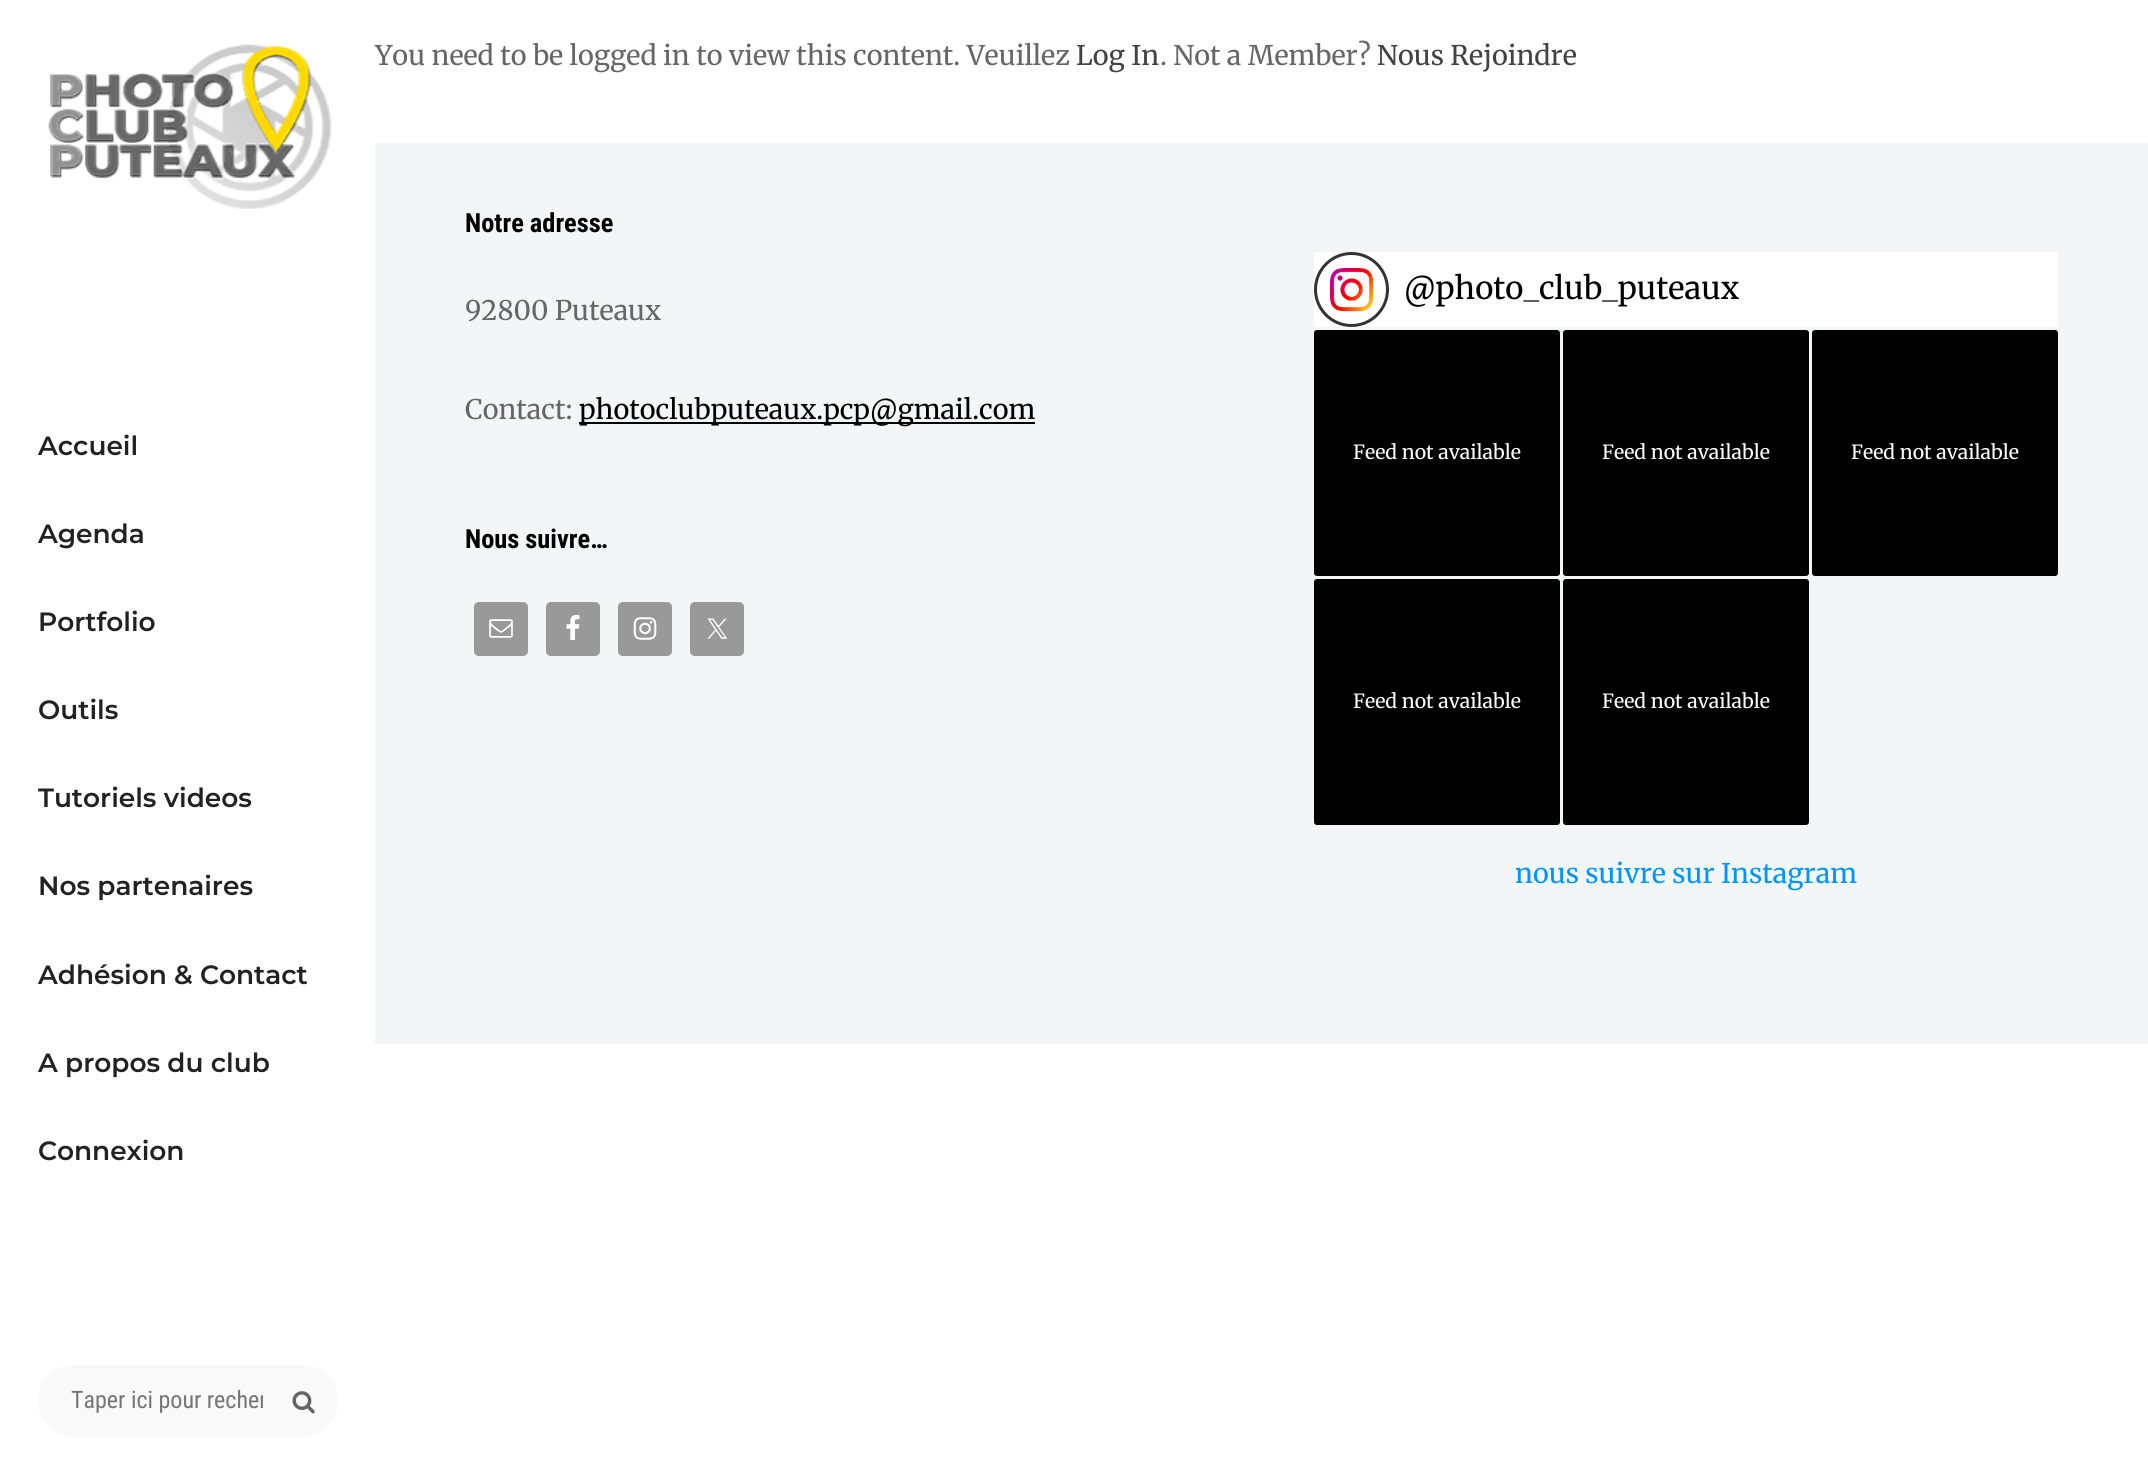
import math
import cairo


def round_path(ctx, x, y, w, h, r):
	ctx.new_sub_path()
	for i, (u, v) in enumerate([(x + w - r, y + h - r), (x + r, y + h - r), (x + r, y + r), (x + w - r, y + r)]):
		ctx.arc(u, v, r, i * math.pi / 2, (i + 1) * math.pi / 2)
	ctx.close_path()

def paste(ctx, path, x, y, w, h):
	ctx.save()
	ctx.set_source_surface(cairo.ImageSurface.create_from_png(path), x, y)
	ctx.rectangle(x, y, w, h)
	ctx.fill()
	ctx.restore()

def draw(ctx):
	ctx.set_source_rgb(1, 1, 1)
	ctx.paint()
	paste(ctx, 'media/1.png', 48, 44, 284, 165)
	ctx.select_font_face('Montserrat SemiBold')
	ctx.set_font_size(26.4)
	ctx.set_source_rgb(0.133, 0.133, 0.133)
	for x, y, s in [
		(38, 455, 'Accueil'),
		(38, 543, 'Agenda'),
		(38, 631, 'Portfolio'),
		(38, 719, 'Outils'),
		(38, 807, 'Tutoriels videos'),
		(38, 895, 'Nos partenaires'),
		(38, 984, 'Adhésion & Contact'),
		(38, 1072, 'A propos du club'),
		(38, 1160, 'Connexion'),
	]:
		ctx.move_to(x, y)
		ctx.show_text(s)
	ctx.set_source_rgb(0.976, 0.976, 0.976)
	round_path(ctx, 38, 1365, 300, 72, 36)
	ctx.fill()
	ctx.save()
	ctx.rectangle(71, 1386, 192, 29)
	ctx.clip()
	ctx.select_font_face('Roboto Condensed')
	ctx.set_font_size(24)
	ctx.set_source_rgb(0.459, 0.459, 0.459)
	ctx.move_to(71, 1408)
	ctx.show_text('Taper ici pour recher')
	ctx.restore()
	paste(ctx, 'media/2.png', 292, 1391, 23, 23)
	ctx.select_font_face('Merriweather')
	ctx.set_font_size(27)
	ctx.set_source_rgb(0.4, 0.4, 0.4)
	ctx.move_to(375, 65)
	ctx.show_text('You need to be logged in to view this content. Veuillez')
	ctx.set_source_rgb(0.263, 0.263, 0.263)
	ctx.move_to(1076, 65)
	ctx.show_text('Log In')
	ctx.set_source_rgb(0.4, 0.4, 0.4)
	ctx.move_to(1160, 65)
	ctx.show_text('. Not a Member?')
	ctx.set_source_rgb(0.263, 0.263, 0.263)
	ctx.move_to(1377, 65)
	ctx.show_text('Nous Rejoindre')
	ctx.set_source_rgb(0.949, 0.961, 0.965)
	ctx.rectangle(375, 143, 1773, 901)
	ctx.fill()
	ctx.select_font_face('Roboto Condensed', cairo.FONT_SLANT_NORMAL, cairo.FONT_WEIGHT_BOLD)
	ctx.set_font_size(26.4)
	ctx.set_source_rgb(0, 0, 0)
	ctx.move_to(465, 232)
	ctx.show_text('Notre adresse')
	ctx.select_font_face('Merriweather')
	ctx.set_font_size(27)
	ctx.set_source_rgb(0.4, 0.4, 0.4)
	ctx.move_to(465, 320)
	ctx.show_text('92800 Puteaux')
	ctx.move_to(465, 419)
	ctx.show_text('Contact:')
	ctx.set_source_rgb(0, 0, 0)
	ctx.rectangle(579, 422, 456, 2)
	ctx.fill()
	ctx.move_to(579, 419)
	ctx.show_text('photoclubputeaux.pcp@gmail.com')
	ctx.select_font_face('Roboto Condensed', cairo.FONT_SLANT_NORMAL, cairo.FONT_WEIGHT_BOLD)
	ctx.set_font_size(26.4)
	ctx.move_to(465, 548)
	ctx.show_text('Nous suivre…')
	ctx.set_source_rgb(0.6, 0.6, 0.6)
	round_path(ctx, 474, 602, 54, 54, 5)
	ctx.fill()
	paste(ctx, 'media/3.png', 489, 619, 24, 19)
	round_path(ctx, 546, 602, 54, 54, 5)
	ctx.fill()
	paste(ctx, 'media/4.png', 566, 615, 14, 25)
	round_path(ctx, 618, 602, 54, 54, 5)
	ctx.fill()
	paste(ctx, 'media/5.png', 633, 617, 24, 23)
	round_path(ctx, 690, 602, 54, 54, 5)
	ctx.fill()
	paste(ctx, 'media/6.png', 707, 618, 20, 21)
	ctx.set_source_rgb(1, 1, 1)
	ctx.rectangle(1314, 252, 744, 75)
	ctx.fill()
	ctx.arc(1351.5, 289.5, 36, 0, 2 * math.pi)
	ctx.set_source_rgb(0.2, 0.2, 0.2)
	ctx.set_line_width(3)
	ctx.stroke()
	paste(ctx, 'media/7.png', 1329, 267, 45, 45)
	ctx.select_font_face('Merriweather')
	ctx.set_font_size(31)
	ctx.set_source_rgb(0, 0, 0)
	ctx.move_to(1404, 299)
	ctx.show_text('@photo_club_puteaux')
	round_path(ctx, 1314, 330, 246, 246, 3)
	ctx.fill()
	ctx.set_font_size(19.5)
	ctx.set_source_rgb(1, 1, 1)
	ctx.move_to(1353, 459)
	ctx.show_text('Feed not available')
	ctx.set_source_rgb(0, 0, 0)
	round_path(ctx, 1563, 330, 246, 246, 3)
	ctx.fill()
	ctx.set_source_rgb(1, 1, 1)
	ctx.move_to(1602, 459)
	ctx.show_text('Feed not available')
	ctx.set_source_rgb(0, 0, 0)
	round_path(ctx, 1812, 330, 246, 246, 3)
	ctx.fill()
	ctx.set_source_rgb(1, 1, 1)
	ctx.move_to(1851, 459)
	ctx.show_text('Feed not available')
	ctx.set_source_rgb(0, 0, 0)
	round_path(ctx, 1314, 579, 246, 246, 3)
	ctx.fill()
	ctx.set_source_rgb(1, 1, 1)
	ctx.move_to(1353, 708)
	ctx.show_text('Feed not available')
	ctx.set_source_rgb(0, 0, 0)
	round_path(ctx, 1563, 579, 246, 246, 3)
	ctx.fill()
	ctx.set_source_rgb(1, 1, 1)
	ctx.move_to(1602, 708)
	ctx.show_text('Feed not available')
	ctx.set_font_size(27)
	ctx.set_source_rgb(0, 0.584, 0.965)
	ctx.move_to(1515, 883)
	ctx.show_text('nous suivre sur Instagram')


surface = cairo.ImageSurface(cairo.FORMAT_RGB24, 2148, 1467)
ctx = cairo.Context(surface)
options = cairo.FontOptions()
options.set_hint_metrics(cairo.HINT_METRICS_OFF)
options.set_hint_style(cairo.HINT_STYLE_NONE)
ctx.set_font_options(options)
ctx.set_miter_limit(4)
draw(ctx)
surface.write_to_png('image.png')
